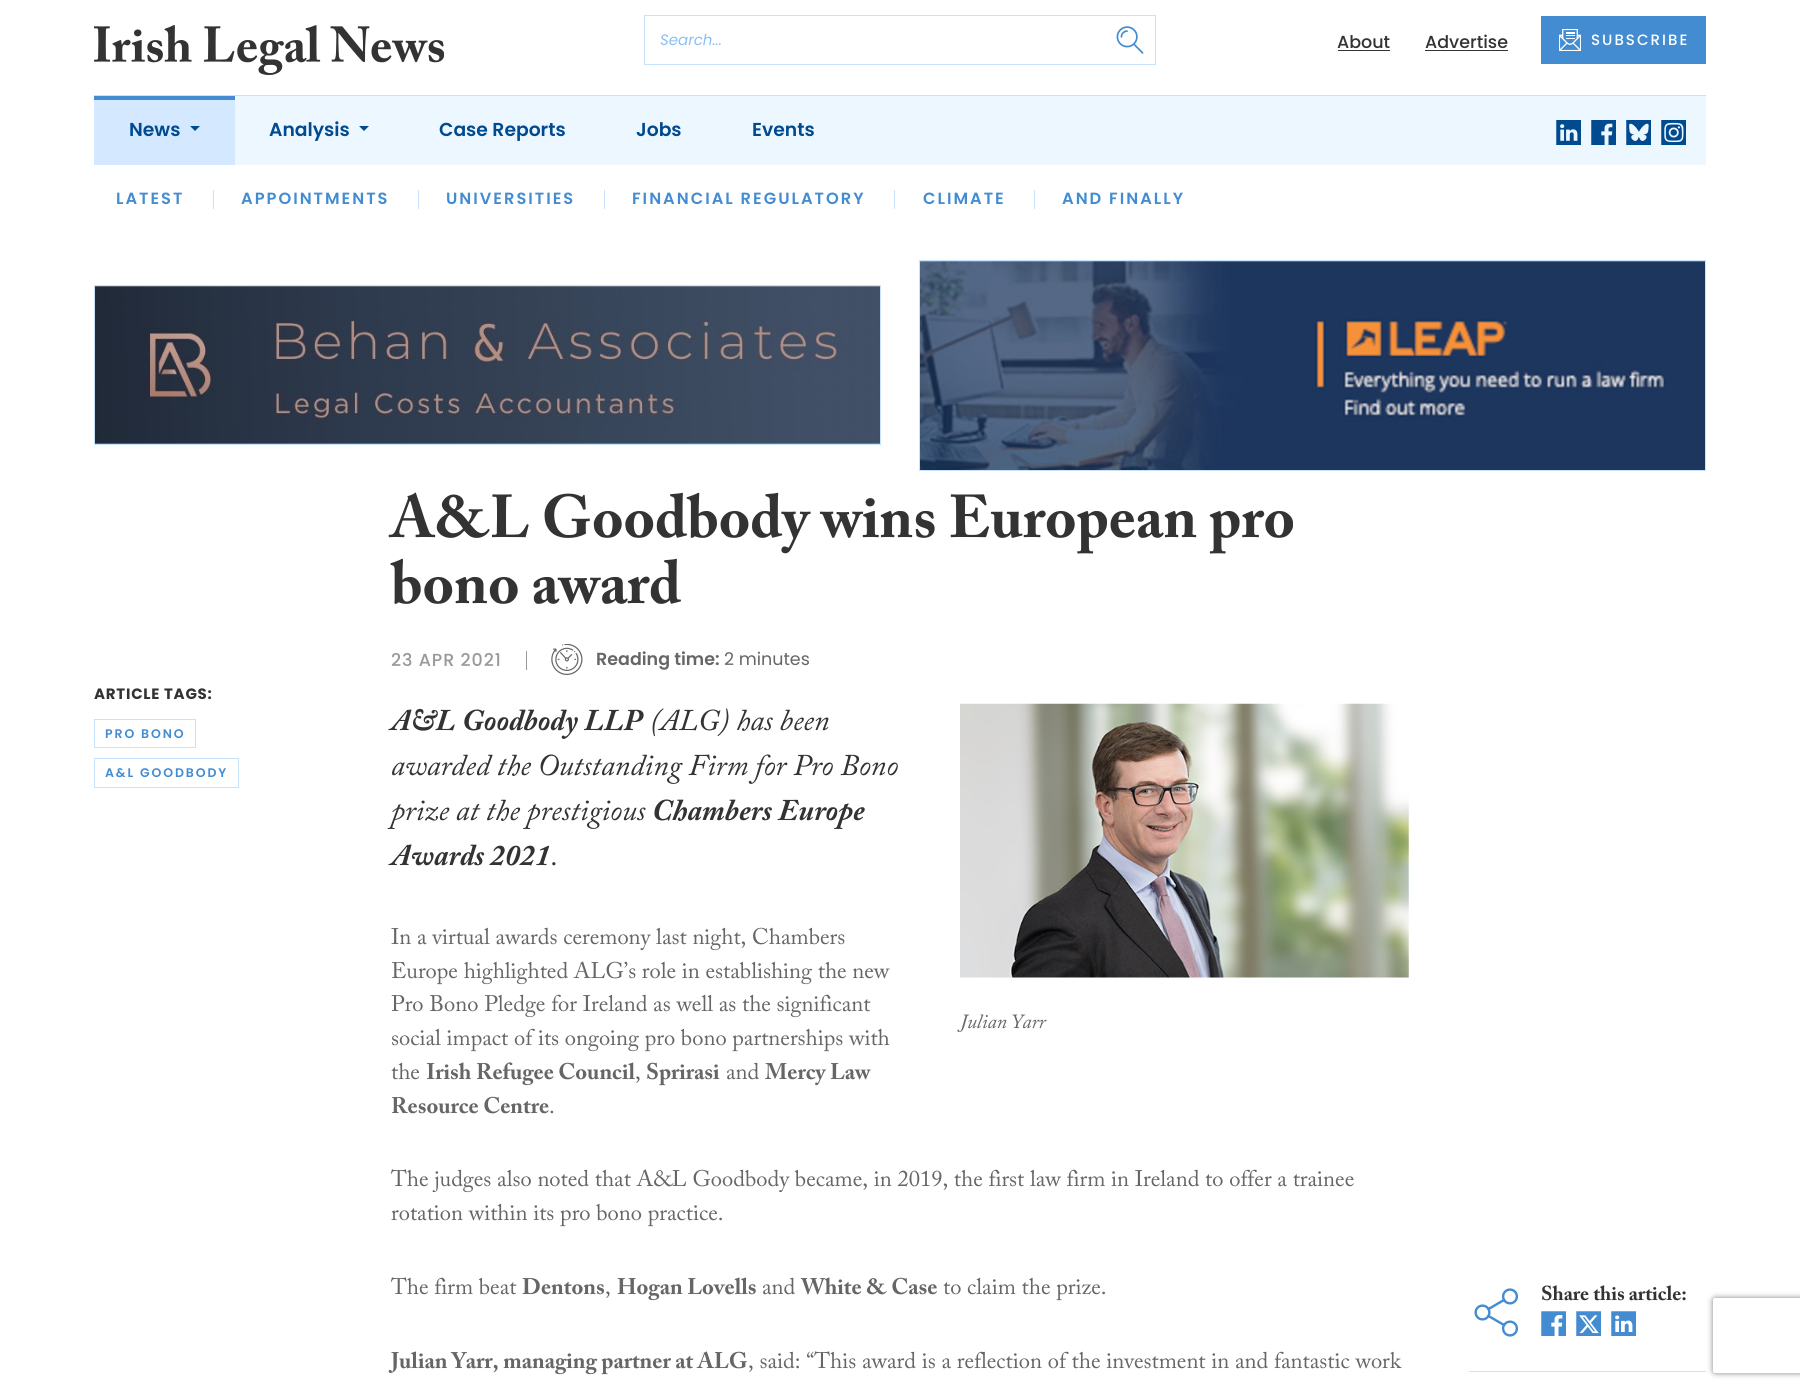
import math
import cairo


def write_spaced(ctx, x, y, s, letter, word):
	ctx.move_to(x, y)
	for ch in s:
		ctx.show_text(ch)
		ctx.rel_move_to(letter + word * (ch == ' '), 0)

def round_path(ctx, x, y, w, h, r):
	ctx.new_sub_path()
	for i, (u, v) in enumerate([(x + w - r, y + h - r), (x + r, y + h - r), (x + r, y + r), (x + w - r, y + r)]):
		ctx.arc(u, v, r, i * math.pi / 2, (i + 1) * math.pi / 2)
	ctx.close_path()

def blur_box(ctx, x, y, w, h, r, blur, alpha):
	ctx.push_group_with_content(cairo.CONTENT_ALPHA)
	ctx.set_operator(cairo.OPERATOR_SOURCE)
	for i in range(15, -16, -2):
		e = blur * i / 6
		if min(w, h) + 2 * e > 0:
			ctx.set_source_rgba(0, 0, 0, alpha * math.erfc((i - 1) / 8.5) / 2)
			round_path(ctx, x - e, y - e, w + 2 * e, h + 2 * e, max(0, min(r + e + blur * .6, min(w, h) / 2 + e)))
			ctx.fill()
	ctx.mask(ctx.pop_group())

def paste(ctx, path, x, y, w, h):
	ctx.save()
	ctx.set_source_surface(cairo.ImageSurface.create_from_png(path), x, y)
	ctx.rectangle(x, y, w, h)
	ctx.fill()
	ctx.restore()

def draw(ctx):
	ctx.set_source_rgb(1, 1, 1)
	ctx.paint()
	paste(ctx, 'media/1.png', 94, 25, 350, 50)
	ctx.rectangle(644.5, 15.5, 511, 49)
	ctx.set_source_rgb(0.776, 0.886, 0.992)
	ctx.set_line_width(1)
	ctx.stroke()
	ctx.select_font_face('Poppins', cairo.FONT_SLANT_ITALIC)
	ctx.set_font_size(15)
	ctx.set_source_rgb(0.533, 0.753, 0.961)
	ctx.move_to(660, 45)
	ctx.show_text('Search...')
	paste(ctx, 'media/2.png', 1116, 26, 28, 28)
	ctx.select_font_face('Poppins Medium')
	ctx.set_font_size(17.5)
	ctx.set_source_rgb(0.2, 0.2, 0.2)
	ctx.move_to(1337, 48)
	ctx.show_text('About')
	ctx.rectangle(1338, 50, 52, 1)
	ctx.fill()
	ctx.move_to(1425, 48)
	ctx.show_text('Advertise')
	ctx.rectangle(1425, 50, 83, 1)
	ctx.fill()
	ctx.set_source_rgb(0.263, 0.549, 0.82)
	ctx.rectangle(1541, 16, 165, 48)
	ctx.fill()
	paste(ctx, 'media/3.png', 1559, 29, 22, 22)
	ctx.set_font_size(15)
	ctx.set_source_rgb(1, 1, 1)
	write_spaced(ctx, 1591, 45, 'SUBSCRIBE', 2, 0)
	ctx.set_source_rgb(0.929, 0.965, 1)
	ctx.rectangle(235, 96, 1471, 69)
	ctx.fill()
	ctx.set_source_rgb(0.776, 0.886, 0.992)
	ctx.rectangle(94, 95, 1612, 1)
	ctx.fill()
	ctx.select_font_face('Poppins SemiBold')
	ctx.set_font_size(18.75)
	ctx.set_source_rgb(0, 0.29, 0.565)
	ctx.move_to(269, 136)
	ctx.show_text('Analysis')
	ctx.new_path()
	ctx.move_to(359, 126)
	ctx.line_to(369, 126)
	ctx.line_to(364, 131)
	ctx.close_path()
	ctx.fill()
	ctx.set_source_rgb(0.831, 0.914, 1)
	ctx.rectangle(94, 100, 141, 65)
	ctx.fill()
	ctx.set_source_rgb(0.263, 0.549, 0.82)
	ctx.rectangle(94, 96, 141, 4)
	ctx.fill()
	ctx.set_source_rgb(0, 0.29, 0.565)
	ctx.move_to(129, 136)
	ctx.show_text('News')
	ctx.new_path()
	ctx.move_to(190, 126)
	ctx.line_to(200, 126)
	ctx.line_to(195, 131)
	ctx.close_path()
	ctx.fill()
	ctx.set_font_size(16.25)
	ctx.set_source_rgb(0.263, 0.549, 0.82)
	write_spaced(ctx, 116, 204, 'LATEST', 2, 0)
	ctx.set_source_rgb(0.776, 0.886, 0.992)
	ctx.rectangle(213, 190, 1, 19)
	ctx.fill()
	ctx.set_source_rgb(0.263, 0.549, 0.82)
	write_spaced(ctx, 241, 204, 'APPOINTMENTS', 2, 0)
	ctx.set_source_rgb(0.776, 0.886, 0.992)
	ctx.rectangle(418, 190, 1, 19)
	ctx.fill()
	ctx.set_source_rgb(0.263, 0.549, 0.82)
	write_spaced(ctx, 446, 204, 'UNIVERSITIES', 2, 0)
	ctx.set_source_rgb(0.776, 0.886, 0.992)
	ctx.rectangle(604, 190, 1, 19)
	ctx.fill()
	ctx.set_source_rgb(0.263, 0.549, 0.82)
	write_spaced(ctx, 632, 204, 'FINANCIAL REGULATORY', 2, 0)
	ctx.set_source_rgb(0.776, 0.886, 0.992)
	ctx.rectangle(894, 190, 1, 19)
	ctx.fill()
	ctx.set_source_rgb(0.263, 0.549, 0.82)
	write_spaced(ctx, 923, 204, 'CLIMATE', 2, 0)
	ctx.set_source_rgb(0.776, 0.886, 0.992)
	ctx.rectangle(1034, 190, 1, 19)
	ctx.fill()
	ctx.set_source_rgb(0.263, 0.549, 0.82)
	write_spaced(ctx, 1062, 204, 'AND FINALLY', 2, 0)
	ctx.set_font_size(18.75)
	ctx.set_source_rgb(0, 0.29, 0.565)
	for x, y, s in [
		(439, 136, 'Case Reports'),
		(636, 136, 'Jobs'),
		(752, 136, 'Events'),
	]:
		ctx.move_to(x, y)
		ctx.show_text(s)
	paste(ctx, 'media/4.png', 1556, 120, 25, 25)
	paste(ctx, 'media/5.png', 1591, 120, 25, 25)
	paste(ctx, 'media/6.png', 1626, 120, 25, 25)
	paste(ctx, 'media/7.png', 1661, 120, 25, 25)
	ctx.rectangle(94.5, 285.5, 786, 159)
	ctx.set_source_rgb(0.776, 0.886, 0.992)
	ctx.stroke()
	paste(ctx, 'media/8.png', 95, 286, 785, 158)
	ctx.rectangle(919.5, 260.5, 786, 210)
	ctx.stroke()
	paste(ctx, 'media/9.png', 920, 261, 785, 209)
	ctx.select_font_face('Poppins', cairo.FONT_SLANT_NORMAL, cairo.FONT_WEIGHT_BOLD)
	ctx.set_font_size(15)
	ctx.set_source_rgb(0.2, 0.2, 0.2)
	write_spaced(ctx, 94, 699, 'ARTICLE TAGS:', 0.75, 0)
	ctx.rectangle(94.5, 719.5, 101, 28)
	ctx.set_source_rgb(0.776, 0.886, 0.992)
	ctx.stroke()
	ctx.select_font_face('Poppins SemiBold')
	ctx.set_font_size(12.5)
	ctx.set_source_rgb(0.263, 0.549, 0.82)
	write_spaced(ctx, 105, 738, 'PRO BONO', 1.9, 0)
	ctx.rectangle(94.5, 758.5, 144, 29)
	ctx.set_source_rgb(0.776, 0.886, 0.992)
	ctx.stroke()
	ctx.set_source_rgb(0.263, 0.549, 0.82)
	write_spaced(ctx, 105, 777, 'A&L GOODBODY', 1.9, 0)
	ctx.select_font_face('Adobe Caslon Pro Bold', cairo.FONT_SLANT_NORMAL, cairo.FONT_WEIGHT_BOLD)
	ctx.set_font_size(60)
	ctx.set_source_rgb(0.2, 0.2, 0.2)
	ctx.move_to(391, 537)
	ctx.show_text('A&L Goodbody wins European pro')
	ctx.move_to(391, 603)
	ctx.show_text('bono award')
	ctx.select_font_face('Poppins Medium')
	ctx.set_font_size(17.5)
	ctx.set_source_rgb(0.6, 0.6, 0.6)
	write_spaced(ctx, 391, 666, '23 APR 2021', 0.9, 0)
	ctx.rectangle(526, 651, 1, 19)
	ctx.fill()
	paste(ctx, 'media/10.png', 551, 644, 32, 31)
	ctx.select_font_face('Poppins SemiBold')
	ctx.set_source_rgb(0.4, 0.4, 0.4)
	ctx.move_to(596, 665)
	ctx.show_text('Reading time:')
	ctx.select_font_face('Poppins')
	ctx.move_to(724, 665)
	ctx.show_text('2 minutes')
	ctx.select_font_face('Adobe Caslon Pro Bold', cairo.FONT_SLANT_ITALIC, cairo.FONT_WEIGHT_BOLD)
	ctx.set_font_size(30)
	ctx.set_source_rgb(0.2, 0.2, 0.2)
	ctx.move_to(391, 730)
	ctx.show_text('A&L Goodbody LLP')
	ctx.select_font_face('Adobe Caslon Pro', cairo.FONT_SLANT_ITALIC)
	for x, y, s in [
		(650, 730, '(ALG) has been'),
		(391, 775, 'awarded the Outstanding Firm for Pro Bono'),
		(391, 820, 'prize at the prestigious'),
	]:
		ctx.move_to(x, y)
		ctx.show_text(s)
	ctx.select_font_face('Adobe Caslon Pro Bold', cairo.FONT_SLANT_ITALIC, cairo.FONT_WEIGHT_BOLD)
	ctx.move_to(652, 820)
	ctx.show_text('Chambers Europe')
	ctx.move_to(391, 865)
	ctx.show_text('Awards 2021')
	ctx.select_font_face('Adobe Caslon Pro', cairo.FONT_SLANT_ITALIC)
	ctx.move_to(551, 865)
	ctx.show_text('.')
	ctx.select_font_face('Adobe Caslon Pro')
	ctx.set_font_size(22.5)
	ctx.set_source_rgb(0.4, 0.4, 0.4)
	for x, y, s in [
		(391, 944, 'In a virtual awards ceremony last night, Chambers'),
		(391, 978, 'Europe highlighted ALG’s role in establishing the new'),
		(391, 1011, 'Pro Bono Pledge for Ireland as well as the significant'),
		(391, 1045, 'social impact of its ongoing pro bono partnerships with'),
		(391, 1079, 'the'),
	]:
		ctx.move_to(x, y)
		ctx.show_text(s)
	ctx.select_font_face('Adobe Caslon Pro Bold', cairo.FONT_SLANT_NORMAL, cairo.FONT_WEIGHT_BOLD)
	ctx.move_to(426, 1079)
	ctx.show_text('Irish Refugee Council')
	ctx.select_font_face('Adobe Caslon Pro')
	ctx.move_to(635, 1079)
	ctx.show_text(',')
	ctx.select_font_face('Adobe Caslon Pro Bold', cairo.FONT_SLANT_NORMAL, cairo.FONT_WEIGHT_BOLD)
	ctx.move_to(646, 1079)
	ctx.show_text('Sprirasi')
	ctx.select_font_face('Adobe Caslon Pro')
	ctx.move_to(726, 1079)
	ctx.show_text('and')
	ctx.select_font_face('Adobe Caslon Pro Bold', cairo.FONT_SLANT_NORMAL, cairo.FONT_WEIGHT_BOLD)
	ctx.move_to(765, 1079)
	ctx.show_text('Mercy Law')
	ctx.move_to(391, 1113)
	ctx.show_text('Resource Centre')
	ctx.select_font_face('Adobe Caslon Pro')
	ctx.move_to(549, 1113)
	ctx.show_text('.')
	paste(ctx, 'media/11.png', 960, 703, 449, 275)
	ctx.select_font_face('Adobe Caslon Pro', cairo.FONT_SLANT_ITALIC)
	ctx.set_font_size(20)
	ctx.move_to(960, 1028)
	ctx.show_text('Julian Yarr')
	ctx.select_font_face('Adobe Caslon Pro')
	ctx.set_font_size(22.5)
	for x, y, s in [
		(391, 1186, 'The judges also noted that A&L Goodbody became, in 2019, the first law firm in Ireland to offer a trainee'),
		(391, 1220, 'rotation within its pro bono practice.'),
		(391, 1294, 'The firm beat'),
	]:
		ctx.move_to(x, y)
		ctx.show_text(s)
	ctx.select_font_face('Adobe Caslon Pro Bold', cairo.FONT_SLANT_NORMAL, cairo.FONT_WEIGHT_BOLD)
	ctx.move_to(522, 1294)
	ctx.show_text('Dentons')
	ctx.select_font_face('Adobe Caslon Pro')
	ctx.move_to(605, 1294)
	ctx.show_text(',')
	ctx.select_font_face('Adobe Caslon Pro Bold', cairo.FONT_SLANT_NORMAL, cairo.FONT_WEIGHT_BOLD)
	ctx.move_to(617, 1294)
	ctx.show_text('Hogan Lovells')
	ctx.select_font_face('Adobe Caslon Pro')
	ctx.move_to(762, 1294)
	ctx.show_text('and')
	ctx.select_font_face('Adobe Caslon Pro Bold', cairo.FONT_SLANT_NORMAL, cairo.FONT_WEIGHT_BOLD)
	ctx.move_to(801, 1294)
	ctx.show_text('White & Case')
	ctx.select_font_face('Adobe Caslon Pro')
	ctx.move_to(943, 1294)
	ctx.show_text('to claim the prize.')
	ctx.select_font_face('Adobe Caslon Pro Bold', cairo.FONT_SLANT_NORMAL, cairo.FONT_WEIGHT_BOLD)
	ctx.move_to(391, 1368)
	ctx.show_text('Julian Yarr, managing partner at ALG')
	ctx.select_font_face('Adobe Caslon Pro')
	ctx.move_to(748, 1368)
	ctx.show_text(', said: “This award is a reflection of the investment in and fantastic work')
	ctx.save()
	ctx.set_fill_rule(cairo.FILL_RULE_EVEN_ODD)
	ctx.new_path()
	ctx.move_to(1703, 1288)
	ctx.line_to(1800, 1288)
	ctx.line_to(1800, 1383)
	ctx.line_to(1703, 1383)
	ctx.close_path()
	ctx.move_to(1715.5, 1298)
	ctx.line_to(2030.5, 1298)
	ctx.curve_to(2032, 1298, 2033, 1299, 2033, 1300.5)
	ctx.line_to(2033, 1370.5)
	ctx.curve_to(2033, 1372, 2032, 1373, 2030.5, 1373)
	ctx.line_to(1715.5, 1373)
	ctx.curve_to(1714, 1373, 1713, 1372, 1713, 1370.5)
	ctx.line_to(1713, 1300.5)
	ctx.curve_to(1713, 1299, 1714, 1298, 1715.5, 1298)
	ctx.close_path()
	ctx.clip()
	ctx.set_source_rgb(0.502, 0.502, 0.502)
	blur_box(ctx, 1713, 1298, 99, 75, 2.5, 3, 1)
	ctx.restore()
	paste(ctx, 'media/12.png', 1474, 1288, 45, 49)
	ctx.select_font_face('Adobe Caslon Pro Bold', cairo.FONT_SLANT_NORMAL, cairo.FONT_WEIGHT_BOLD)
	ctx.set_font_size(20)
	ctx.set_source_rgb(0.2, 0.2, 0.2)
	ctx.move_to(1541, 1300)
	ctx.show_text('Share this article:')
	paste(ctx, 'media/13.png', 1541, 1311, 25, 25)
	paste(ctx, 'media/14.png', 1576, 1311, 25, 25)
	paste(ctx, 'media/15.png', 1611, 1311, 25, 25)
	ctx.set_source_rgb(0.776, 0.886, 0.992)
	ctx.rectangle(1469, 1371, 237, 1)
	ctx.fill()


surface = cairo.ImageSurface(cairo.FORMAT_RGB24, 1800, 1389)
ctx = cairo.Context(surface)
options = cairo.FontOptions()
options.set_hint_metrics(cairo.HINT_METRICS_OFF)
options.set_hint_style(cairo.HINT_STYLE_NONE)
ctx.set_font_options(options)
ctx.set_miter_limit(4)
draw(ctx)
surface.write_to_png('image.png')
